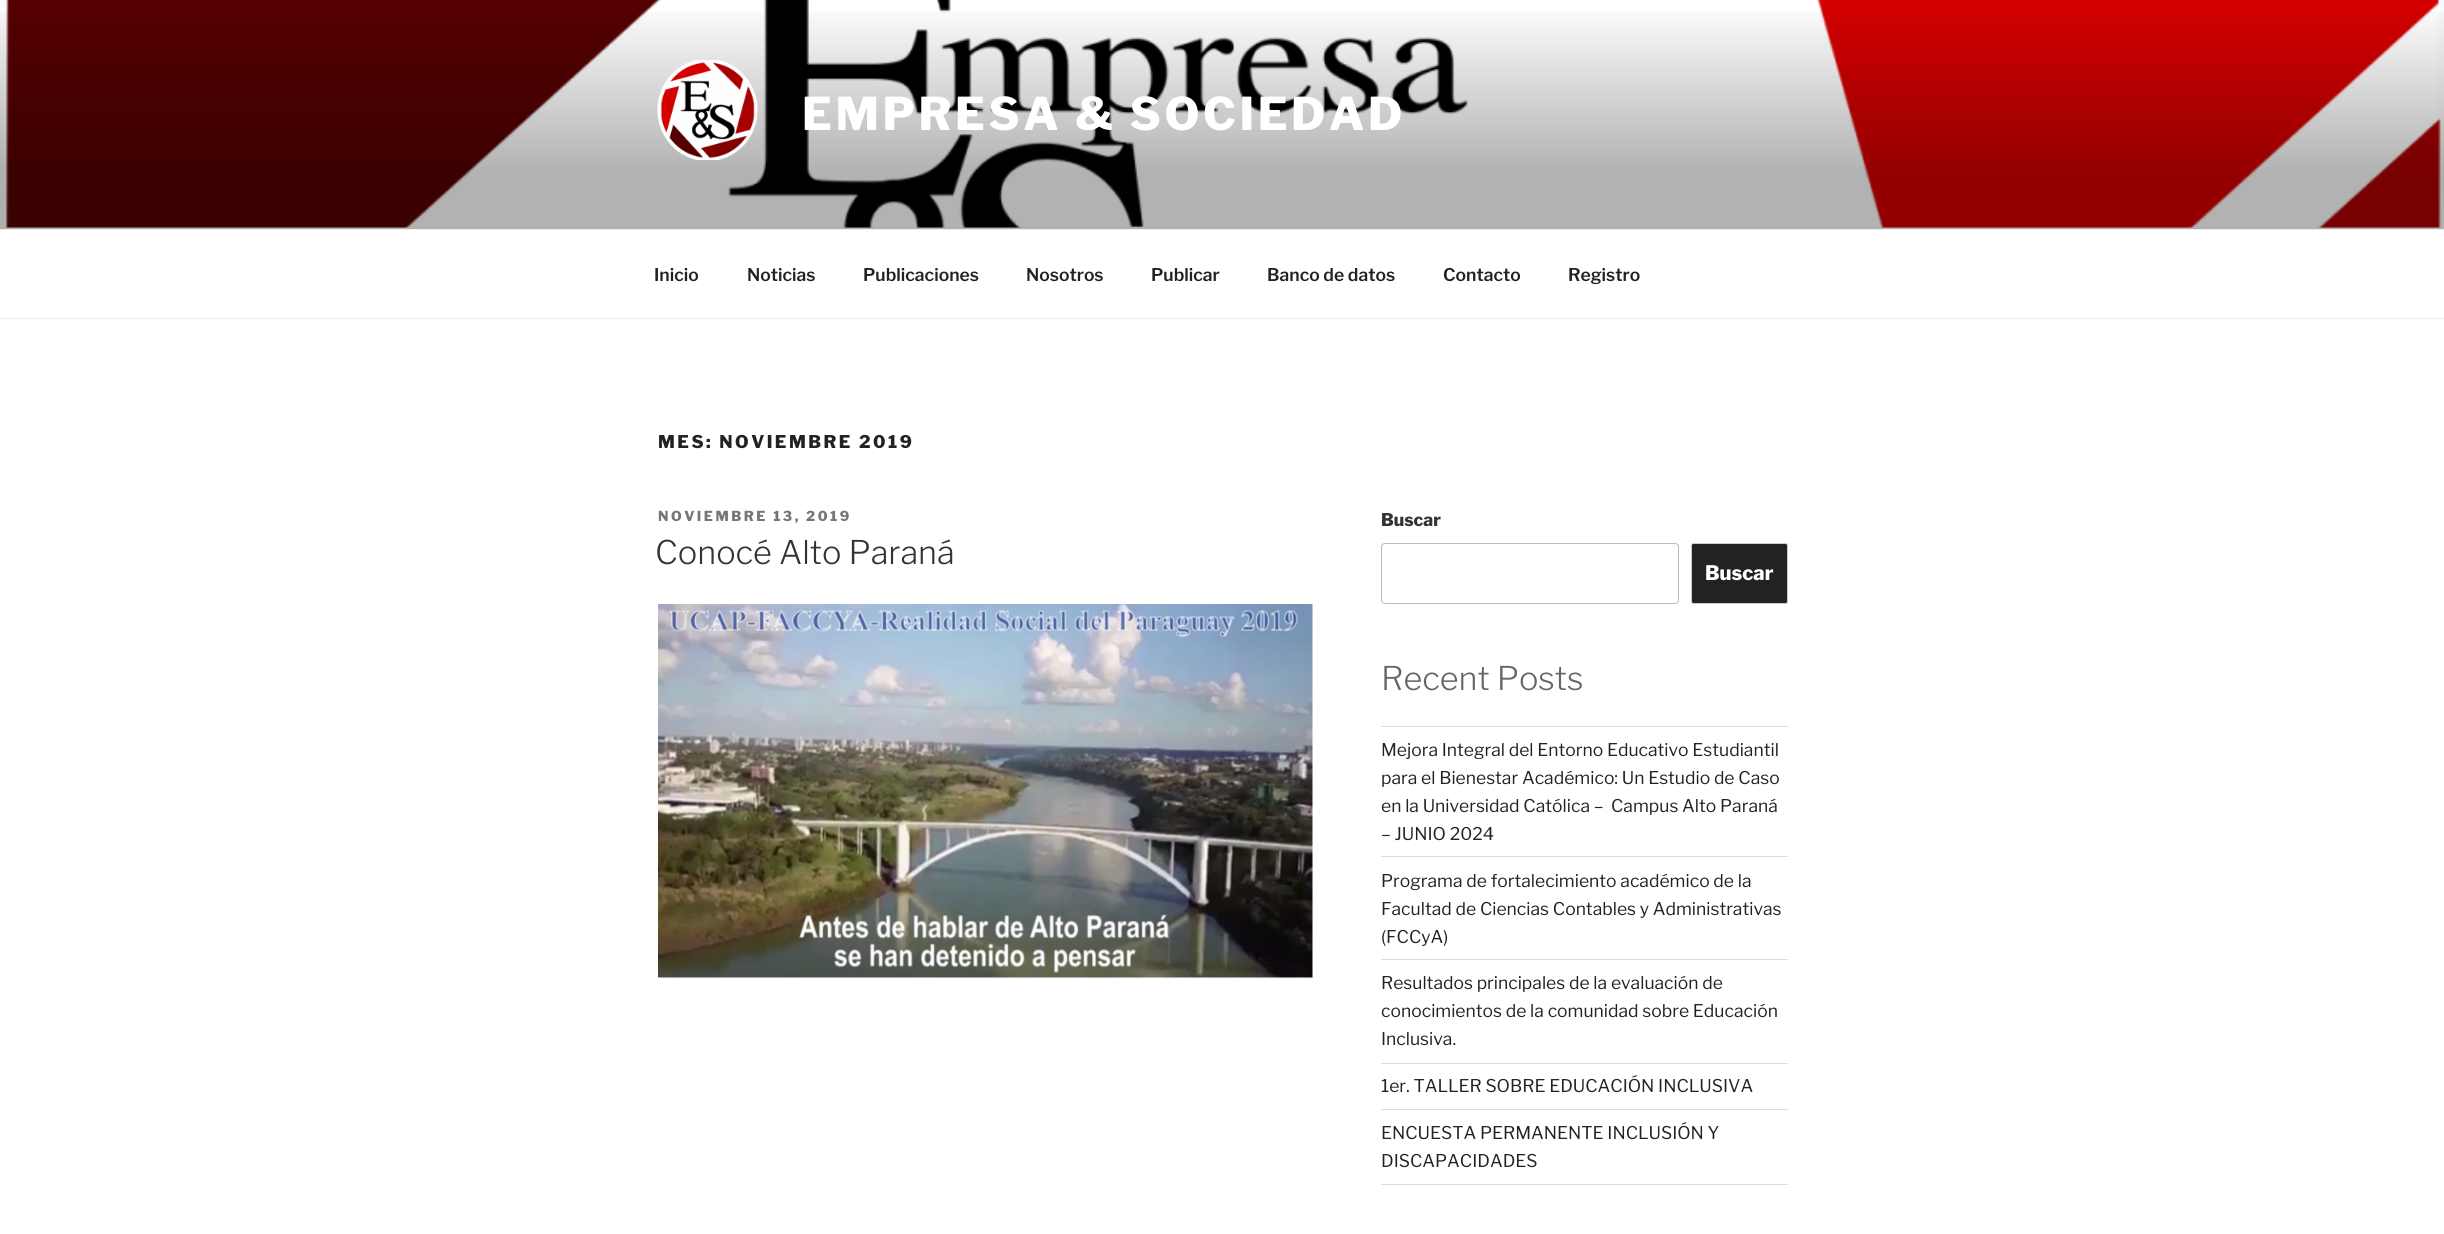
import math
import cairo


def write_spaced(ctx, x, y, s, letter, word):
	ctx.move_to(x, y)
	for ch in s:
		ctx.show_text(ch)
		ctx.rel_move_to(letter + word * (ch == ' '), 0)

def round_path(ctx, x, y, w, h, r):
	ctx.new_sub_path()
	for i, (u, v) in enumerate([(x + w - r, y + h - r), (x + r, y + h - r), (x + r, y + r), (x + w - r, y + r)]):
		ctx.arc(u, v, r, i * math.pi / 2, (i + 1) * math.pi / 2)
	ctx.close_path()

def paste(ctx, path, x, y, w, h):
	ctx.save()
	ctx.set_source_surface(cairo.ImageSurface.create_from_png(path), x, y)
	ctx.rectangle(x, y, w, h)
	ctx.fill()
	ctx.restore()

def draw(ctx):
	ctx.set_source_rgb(1, 1, 1)
	ctx.paint()
	ctx.set_source_rgb(0.98, 0.98, 0.98)
	ctx.rectangle(0, 0, 2444, 229)
	ctx.fill()
	paste(ctx, 'media/1.png', 6, 0, 2435, 228)
	gradient = cairo.LinearGradient(1223, 0, 1223, 229)
	gradient.add_color_stop_rgba(0, 0, 0, 0, 0)
	gradient.add_color_stop_rgba(0.75, 0, 0, 0, 0.3)
	gradient.add_color_stop_rgba(1, 0, 0, 0, 0.3)
	ctx.set_source(gradient)
	ctx.rectangle(0, 12, 2444, 217)
	ctx.fill()
	paste(ctx, 'media/2.png', 657, 60, 101, 100)
	ctx.select_font_face('Libre Franklin Thin')
	ctx.set_font_size(45)
	ctx.set_source_rgb(1, 1, 1)
	write_spaced(ctx, 802, 130, 'EMPRESA & SOCIEDAD', 3.6, 0)
	ctx.set_source_rgb(0.933, 0.933, 0.933)
	ctx.rectangle(0, 229, 2444, 1)
	ctx.fill()
	ctx.rectangle(0, 318, 2444, 1)
	ctx.fill()
	ctx.select_font_face('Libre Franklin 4 Thin')
	ctx.set_font_size(17.5)
	ctx.set_source_rgb(0.133, 0.133, 0.133)
	for x, y, s in [
		(654, 281, 'Inicio'),
		(747, 281, 'Noticias'),
		(863, 281, 'Publicaciones'),
		(1026, 281, 'Nosotros'),
		(1151, 281, 'Publicar'),
		(1267, 281, 'Banco de datos'),
		(1443, 281, 'Contacto'),
		(1568, 281, 'Registro'),
	]:
		ctx.move_to(x, y)
		ctx.show_text(s)
	ctx.select_font_face('Libre Franklin Thin')
	write_spaced(ctx, 658, 448, 'MES: NOVIEMBRE 2019', 2.5, 0)
	ctx.set_font_size(13.75)
	ctx.set_source_rgb(0.463, 0.463, 0.463)
	write_spaced(ctx, 658, 521, 'NOVIEMBRE 13, 2019', 2.5, 0)
	ctx.select_font_face('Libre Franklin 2 Thin')
	ctx.set_font_size(32.5)
	ctx.set_source_rgb(0.2, 0.2, 0.2)
	ctx.move_to(655, 564)
	ctx.show_text('Conocé Alto Paraná')
	paste(ctx, 'media/3.png', 658, 604, 655, 375)
	ctx.select_font_face('Libre Franklin Thin')
	ctx.set_font_size(17.5)
	ctx.move_to(1381, 526)
	ctx.show_text('Buscar')
	round_path(ctx, 1381.5, 543.5, 297, 60, 3.5)
	ctx.set_source_rgb(0.733, 0.733, 0.733)
	ctx.set_line_width(1)
	ctx.stroke()
	ctx.set_source_rgb(0.133, 0.133, 0.133)
	round_path(ctx, 1691.5, 543.5, 96, 60, 2)
	ctx.fill_preserve()
	ctx.set_source_rgb(0.8, 0.8, 0.8)
	ctx.stroke()
	ctx.set_font_size(20)
	ctx.set_source_rgb(1, 1, 1)
	ctx.move_to(1705, 580)
	ctx.show_text('Buscar')
	ctx.select_font_face('Libre Franklin 2 Thin')
	ctx.set_font_size(32.5)
	ctx.set_source_rgb(0.4, 0.4, 0.4)
	ctx.move_to(1381, 690)
	ctx.show_text('Recent Posts')
	ctx.set_source_rgb(0.867, 0.867, 0.867)
	ctx.rectangle(1381, 726, 407, 1)
	ctx.fill()
	ctx.rectangle(1381, 856, 407, 1)
	ctx.fill()
	ctx.select_font_face('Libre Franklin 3 Thin')
	ctx.set_font_size(17.5)
	ctx.set_source_rgb(0.133, 0.133, 0.133)
	for x, y, s in [
		(1381, 756, 'Mejora Integral del Entorno Educativo Estudiantil'),
		(1381, 784, 'para el Bienestar Académico: Un Estudio de Caso'),
		(1381, 812, 'en la Universidad Católica –  Campus Alto Paraná'),
		(1381, 840, '– JUNIO 2024'),
	]:
		ctx.move_to(x, y)
		ctx.show_text(s)
	ctx.set_source_rgb(0.867, 0.867, 0.867)
	ctx.rectangle(1381, 959, 407, 1)
	ctx.fill()
	ctx.set_source_rgb(0.133, 0.133, 0.133)
	for x, y, s in [
		(1381, 887, 'Programa de fortalecimiento académico de la'),
		(1381, 915, 'Facultad de Ciencias Contables y Administrativas'),
		(1381, 943, '(FCCyA)'),
	]:
		ctx.move_to(x, y)
		ctx.show_text(s)
	ctx.set_source_rgb(0.867, 0.867, 0.867)
	ctx.rectangle(1381, 1063, 407, 1)
	ctx.fill()
	ctx.set_source_rgb(0.133, 0.133, 0.133)
	for x, y, s in [
		(1381, 989, 'Resultados principales de la evaluación de'),
		(1381, 1017, 'conocimientos de la comunidad sobre Educación'),
		(1381, 1045, 'Inclusiva.'),
	]:
		ctx.move_to(x, y)
		ctx.show_text(s)
	ctx.set_source_rgb(0.867, 0.867, 0.867)
	ctx.rectangle(1381, 1109, 407, 1)
	ctx.fill()
	ctx.set_source_rgb(0.133, 0.133, 0.133)
	ctx.move_to(1381, 1092)
	ctx.show_text('1er. TALLER SOBRE EDUCACIÓN INCLUSIVA')
	ctx.set_source_rgb(0.867, 0.867, 0.867)
	ctx.rectangle(1381, 1184, 407, 1)
	ctx.fill()
	ctx.set_source_rgb(0.133, 0.133, 0.133)
	ctx.move_to(1381, 1139)
	ctx.show_text('ENCUESTA PERMANENTE INCLUSIÓN Y')
	ctx.move_to(1381, 1167)
	ctx.show_text('DISCAPACIDADES')


surface = cairo.ImageSurface(cairo.FORMAT_RGB24, 2444, 1234)
ctx = cairo.Context(surface)
options = cairo.FontOptions()
options.set_hint_metrics(cairo.HINT_METRICS_OFF)
options.set_hint_style(cairo.HINT_STYLE_NONE)
ctx.set_font_options(options)
ctx.set_miter_limit(4)
draw(ctx)
surface.write_to_png('image.png')
